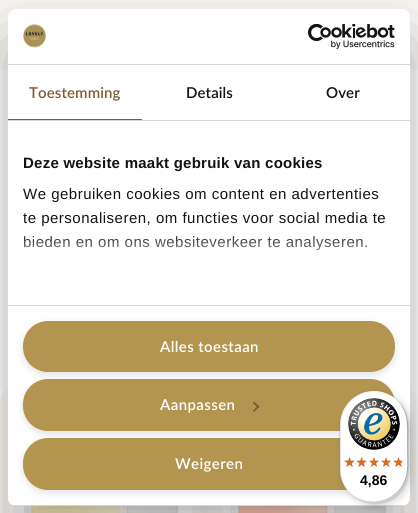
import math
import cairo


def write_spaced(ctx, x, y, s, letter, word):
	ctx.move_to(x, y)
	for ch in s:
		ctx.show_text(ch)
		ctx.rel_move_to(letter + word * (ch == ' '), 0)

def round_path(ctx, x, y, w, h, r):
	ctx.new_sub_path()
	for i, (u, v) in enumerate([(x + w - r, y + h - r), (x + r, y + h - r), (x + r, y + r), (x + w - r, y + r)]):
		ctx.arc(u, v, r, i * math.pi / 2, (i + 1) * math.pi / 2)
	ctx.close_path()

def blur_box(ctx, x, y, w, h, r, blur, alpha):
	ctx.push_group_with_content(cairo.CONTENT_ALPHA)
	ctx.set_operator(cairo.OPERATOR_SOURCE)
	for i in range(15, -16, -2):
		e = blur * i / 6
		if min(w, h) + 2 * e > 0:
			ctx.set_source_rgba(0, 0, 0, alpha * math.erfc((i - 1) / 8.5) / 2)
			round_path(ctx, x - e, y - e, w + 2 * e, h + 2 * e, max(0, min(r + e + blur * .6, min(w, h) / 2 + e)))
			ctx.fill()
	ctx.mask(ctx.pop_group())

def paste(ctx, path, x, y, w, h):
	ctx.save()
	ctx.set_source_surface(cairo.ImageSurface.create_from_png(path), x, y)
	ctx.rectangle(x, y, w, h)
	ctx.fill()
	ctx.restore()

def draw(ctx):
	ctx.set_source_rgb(1, 1, 1)
	ctx.paint()
	ctx.set_source_rgb(0.984, 0.969, 0.957)
	ctx.rectangle(0, 0, 418, 70)
	ctx.fill()
	round_path(ctx, 0, 389, 207, 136, 12)
	ctx.fill()
	paste(ctx, 'media/1.png', 15, 505, 177, 8)
	ctx.set_source_rgb(0, 0, 0)
	blur_box(ctx, 207, 392, 208, 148, 12, 5, 0.06)
	ctx.set_source_rgb(0.984, 0.969, 0.957)
	round_path(ctx, 207, 389, 208, 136, 12)
	ctx.fill()
	paste(ctx, 'media/2.png', 222, 506, 178, 7)
	ctx.set_source_rgb(0, 0, 0)
	blur_box(ctx, 8, 41, 402, 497, 8, 34, 0.3)
	ctx.set_source_rgb(1, 1, 1)
	round_path(ctx, 8, 9, 402, 497, 8)
	ctx.fill()
	ctx.set_source_rgb(0.839, 0.839, 0.839)
	ctx.rectangle(8, 64, 402, 1)
	ctx.fill()
	paste(ctx, 'media/3.png', 23, 24, 23, 24)
	paste(ctx, 'media/4.png', 308, 24, 87, 25)
	ctx.rectangle(8, 120, 402, 1)
	ctx.fill()
	ctx.set_source_rgb(0.514, 0.349, 0.184)
	ctx.rectangle(8, 119, 134, 1)
	ctx.fill()
	ctx.select_font_face('Lato SemiBold')
	ctx.set_font_size(15)
	write_spaced(ctx, 29, 98, 'Toestemming', 0.1, 0)
	ctx.set_source_rgb(0.078, 0.078, 0.078)
	write_spaced(ctx, 186, 98, 'Details', 0.1, 0)
	write_spaced(ctx, 326, 98, 'Over', 0.1, 0)
	ctx.set_source_rgb(0.839, 0.839, 0.839)
	ctx.rectangle(8, 305, 402, 1)
	ctx.fill()
	ctx.select_font_face('Liberation Sans', cairo.FONT_SLANT_NORMAL, cairo.FONT_WEIGHT_BOLD)
	ctx.set_source_rgb(0.078, 0.078, 0.078)
	write_spaced(ctx, 23, 168, 'Deze website maakt gebruik van cookies', 0.25, 0)
	ctx.select_font_face('Liberation Sans')
	for x, y, s in [
		(23, 199, 'We gebruiken cookies om content en advertenties'),
		(23, 223, 'te personaliseren, om functies voor social media te'),
		(23, 247, 'bieden en om ons websiteverkeer te analyseren.'),
	]:
		write_spaced(ctx, x, y, s, 0.5, 0)
	gradient = cairo.LinearGradient(203, 305, 203, 230)
	gradient.add_color_stop_rgba(0, 1, 1, 1, 1)
	gradient.add_color_stop_rgba(0.5, 1, 1, 1, 0.8)
	gradient.add_color_stop_rgba(1, 1, 1, 1, 0)
	ctx.set_source(gradient)
	ctx.rectangle(24, 236, 343, 15)
	ctx.fill()
	ctx.save()
	round_path(ctx, 8, 9, 402, 497, 8)
	ctx.clip()
	ctx.set_source_rgb(0.839, 0.839, 0.839)
	ctx.rectangle(8, 505, 402, 1)
	ctx.fill()
	ctx.restore()
	ctx.set_source_rgb(0, 0, 0)
	blur_box(ctx, 23, 324, 372, 51, 25, 4, 0.12)
	ctx.set_source_rgb(0.702, 0.584, 0.314)
	round_path(ctx, 23, 321, 372, 51, 25)
	ctx.fill()
	ctx.select_font_face('Lato SemiBold')
	ctx.set_source_rgb(1, 1, 1)
	write_spaced(ctx, 160, 352, 'Alles toestaan', 0.4, 0)
	ctx.set_source_rgb(0, 0, 0)
	blur_box(ctx, 23, 382, 372, 52, 25, 4, 0.12)
	ctx.set_source_rgb(0.702, 0.584, 0.314)
	round_path(ctx, 23, 379, 372, 52, 25)
	ctx.fill()
	ctx.set_source_rgb(1, 1, 1)
	write_spaced(ctx, 160, 410, 'Aanpassen', 0.4, 0)
	ctx.set_source_rgb(0.514, 0.349, 0.184)
	ctx.new_path()
	ctx.move_to(254, 401.5)
	ctx.line_to(259.5, 406.5)
	ctx.line_to(258, 408)
	ctx.line_to(253, 403)
	ctx.close_path()
	ctx.fill()
	ctx.new_path()
	ctx.move_to(258, 405.5)
	ctx.line_to(259.5, 406.5)
	ctx.line_to(254, 412)
	ctx.line_to(253, 410.5)
	ctx.close_path()
	ctx.fill()
	ctx.set_source_rgb(0, 0, 0)
	blur_box(ctx, 23, 441, 372, 52, 25, 4, 0.12)
	ctx.set_source_rgb(0.702, 0.584, 0.314)
	round_path(ctx, 23, 438, 372, 52, 25)
	ctx.fill()
	ctx.set_source_rgb(1, 1, 1)
	write_spaced(ctx, 175, 469, 'Weigeren', 0.4, 0)
	ctx.set_source_rgb(0, 0, 0)
	blur_box(ctx, 343, 394, 68, 112, 34, 4, 0.15)
	blur_box(ctx, 341, 392, 68, 112, 34, 1, 0.15)
	ctx.set_source_rgb(1, 1, 1)
	round_path(ctx, 340, 391, 68, 112, 34)
	ctx.fill()
	ctx.set_source_rgba(0, 0, 0, 0.1)
	ctx.new_path()
	ctx.move_to(375, 392)
	ctx.curve_to(383, 392, 391, 395, 397, 400)
	ctx.curve_to(380, 385, 352, 391, 343, 412)
	ctx.curve_to(338, 422, 340, 436, 340, 447)
	ctx.curve_to(340, 462, 337, 479, 349, 492)
	ctx.curve_to(344, 486, 341, 478, 341, 470)
	ctx.line_to(341, 426)
	ctx.curve_to(341, 407, 356, 392, 375, 392)
	ctx.close_path()
	ctx.fill()
	ctx.set_source_rgba(0, 0, 0, 0.2)
	ctx.new_path()
	ctx.move_to(351, 494)
	ctx.curve_to(368, 509, 396, 503, 405, 482)
	ctx.curve_to(410, 472, 408, 458, 408, 447)
	ctx.curve_to(408, 432, 411, 415, 399, 402)
	ctx.curve_to(409, 415, 407, 431, 407, 446)
	ctx.curve_to(407, 457, 409, 471, 404, 481)
	ctx.curve_to(396, 502, 368, 508, 351, 494)
	ctx.close_path()
	ctx.fill()
	ctx.set_source_rgba(0.196, 0.196, 0.196, 0.2)
	ctx.new_path()
	ctx.move_to(347, 490)
	ctx.curve_to(354, 498, 363, 503, 374, 503)
	ctx.curve_to(393, 503, 408, 488, 408, 469)
	ctx.line_to(408, 425)
	ctx.curve_to(408, 414, 403, 405, 395, 398)
	ctx.curve_to(402, 405, 407, 414, 407, 424)
	ctx.line_to(407, 468)
	ctx.curve_to(407, 487, 392, 502, 373, 502)
	ctx.curve_to(363, 502, 354, 497, 347, 490)
	ctx.close_path()
	ctx.fill()
	ctx.set_source_rgba(1, 1, 1, 0.3)
	ctx.new_path()
	ctx.move_to(340, 468)
	ctx.curve_to(340, 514, 408, 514, 408, 468)
	ctx.curve_to(408, 487, 392, 502, 374, 502)
	ctx.curve_to(355, 502, 340, 487, 340, 468)
	ctx.close_path()
	ctx.fill()
	paste(ctx, 'media/5.png', 348, 398, 52, 52)
	paste(ctx, 'media/6.png', 344, 457, 11, 10)
	paste(ctx, 'media/7.png', 357, 457, 10, 10)
	paste(ctx, 'media/8.png', 369, 457, 10, 10)
	paste(ctx, 'media/9.png', 381, 457, 11, 10)
	paste(ctx, 'media/9.png', 393, 457, 11, 10)
	paste(ctx, 'media/10.png', 344, 457, 11, 10)
	paste(ctx, 'media/11.png', 356, 457, 11, 10)
	paste(ctx, 'media/12.png', 369, 457, 10, 10)
	paste(ctx, 'media/13.png', 381, 457, 10, 10)
	paste(ctx, 'media/14.png', 393, 457, 9, 10)
	ctx.select_font_face('Liberation Sans', cairo.FONT_SLANT_NORMAL, cairo.FONT_WEIGHT_BOLD)
	ctx.set_font_size(14)
	ctx.set_source_rgb(0, 0, 0)
	ctx.move_to(360, 485)
	ctx.show_text('4,86')


surface = cairo.ImageSurface(cairo.FORMAT_RGB24, 418, 513)
ctx = cairo.Context(surface)
options = cairo.FontOptions()
options.set_hint_metrics(cairo.HINT_METRICS_OFF)
options.set_hint_style(cairo.HINT_STYLE_NONE)
ctx.set_font_options(options)
ctx.set_miter_limit(4)
draw(ctx)
surface.write_to_png('image.png')
